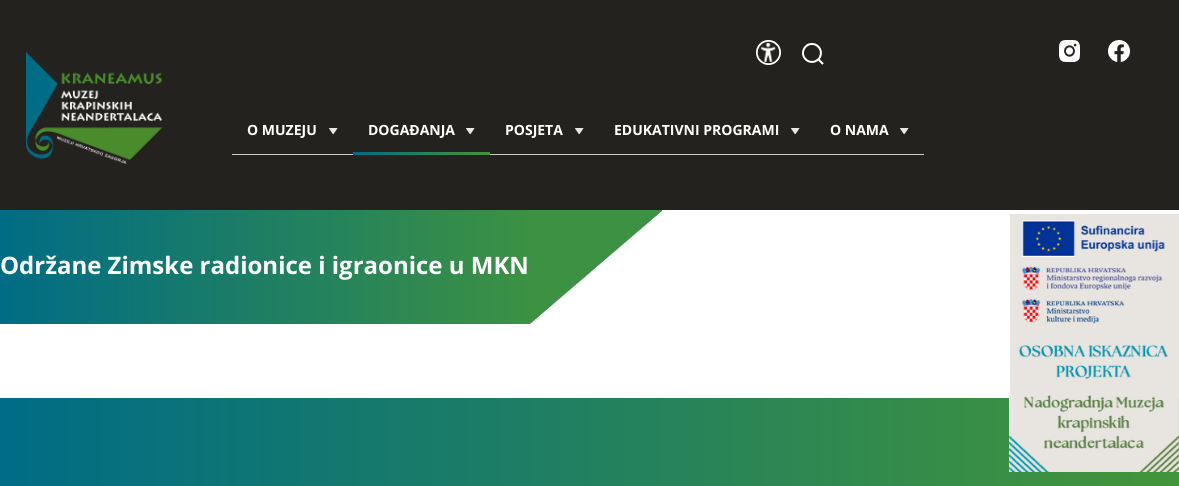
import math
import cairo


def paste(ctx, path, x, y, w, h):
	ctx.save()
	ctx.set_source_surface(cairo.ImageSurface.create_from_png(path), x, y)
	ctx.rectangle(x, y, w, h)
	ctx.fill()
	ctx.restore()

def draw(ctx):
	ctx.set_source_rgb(1, 1, 1)
	ctx.paint()
	ctx.set_source_rgb(0.137, 0.133, 0.118)
	ctx.rectangle(0, 0, 1179, 210)
	ctx.fill()
	paste(ctx, 'media/1.png', 1059, 40, 21, 22)
	paste(ctx, 'media/2.png', 1108, 40, 22, 22)
	paste(ctx, 'media/3.png', 26, 52, 137, 112)
	gradient = cairo.LinearGradient(0, 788, 1179, 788)
	gradient.add_color_stop_rgba(0, 0, 0.424, 0.522, 1)
	gradient.add_color_stop_rgba(1, 0.263, 0.584, 0.224, 1)
	ctx.set_source(gradient)
	ctx.rectangle(0, 398, 1179, 88)
	ctx.fill()
	paste(ctx, 'media/4.png', 1009, 214, 170, 258)
	paste(ctx, 'media/5.png', 756, 40, 25, 25)
	paste(ctx, 'media/6.png', 802, 43, 22, 22)
	ctx.set_source_rgb(0.8, 0.8, 0.8)
	ctx.rectangle(232, 154, 121, 1)
	ctx.fill()
	ctx.select_font_face('Open Sans', cairo.FONT_SLANT_NORMAL, cairo.FONT_WEIGHT_BOLD)
	ctx.set_font_size(14)
	ctx.set_source_rgb(1, 1, 1)
	ctx.move_to(247, 135)
	ctx.show_text('O MUZEJU')
	paste(ctx, 'media/7.png', 329, 128, 9, 7)
	ctx.move_to(368, 135)
	ctx.show_text('DOGAĐANJA')
	paste(ctx, 'media/7.png', 466, 128, 9, 7)
	gradient = cairo.LinearGradient(353, 154, 490, 154)
	gradient.add_color_stop_rgba(0, 0, 0.424, 0.522, 1)
	gradient.add_color_stop_rgba(1, 0.263, 0.584, 0.224, 1)
	ctx.set_source(gradient)
	ctx.rectangle(353, 152, 137, 3)
	ctx.fill()
	ctx.set_source_rgb(0.8, 0.8, 0.8)
	ctx.rectangle(490, 154, 434, 1)
	ctx.fill()
	ctx.set_source_rgb(1, 1, 1)
	ctx.move_to(505, 135)
	ctx.show_text('POSJETA')
	paste(ctx, 'media/7.png', 575, 128, 9, 7)
	ctx.move_to(614, 135)
	ctx.show_text('EDUKATIVNI PROGRAMI')
	paste(ctx, 'media/7.png', 791, 128, 9, 7)
	ctx.move_to(830, 135)
	ctx.show_text('O NAMA')
	paste(ctx, 'media/7.png', 900, 128, 9, 7)
	gradient = cairo.LinearGradient(0, 267, 530, 267)
	gradient.add_color_stop_rgba(0, 0, 0.424, 0.522, 1)
	gradient.add_color_stop_rgba(1, 0.235, 0.569, 0.259, 1)
	ctx.set_source(gradient)
	ctx.rectangle(0, 210, 530, 114)
	ctx.fill()
	ctx.set_font_size(24)
	ctx.set_source_rgb(1, 1, 1)
	ctx.move_to(0, 274)
	ctx.show_text('Održane Zimske radionice i igraonice u MKN')
	paste(ctx, 'media/8.png', 530, 210, 132, 114)


surface = cairo.ImageSurface(cairo.FORMAT_RGB24, 1179, 486)
ctx = cairo.Context(surface)
options = cairo.FontOptions()
options.set_hint_metrics(cairo.HINT_METRICS_OFF)
options.set_hint_style(cairo.HINT_STYLE_NONE)
ctx.set_font_options(options)
ctx.set_miter_limit(4)
draw(ctx)
surface.write_to_png('image.png')
